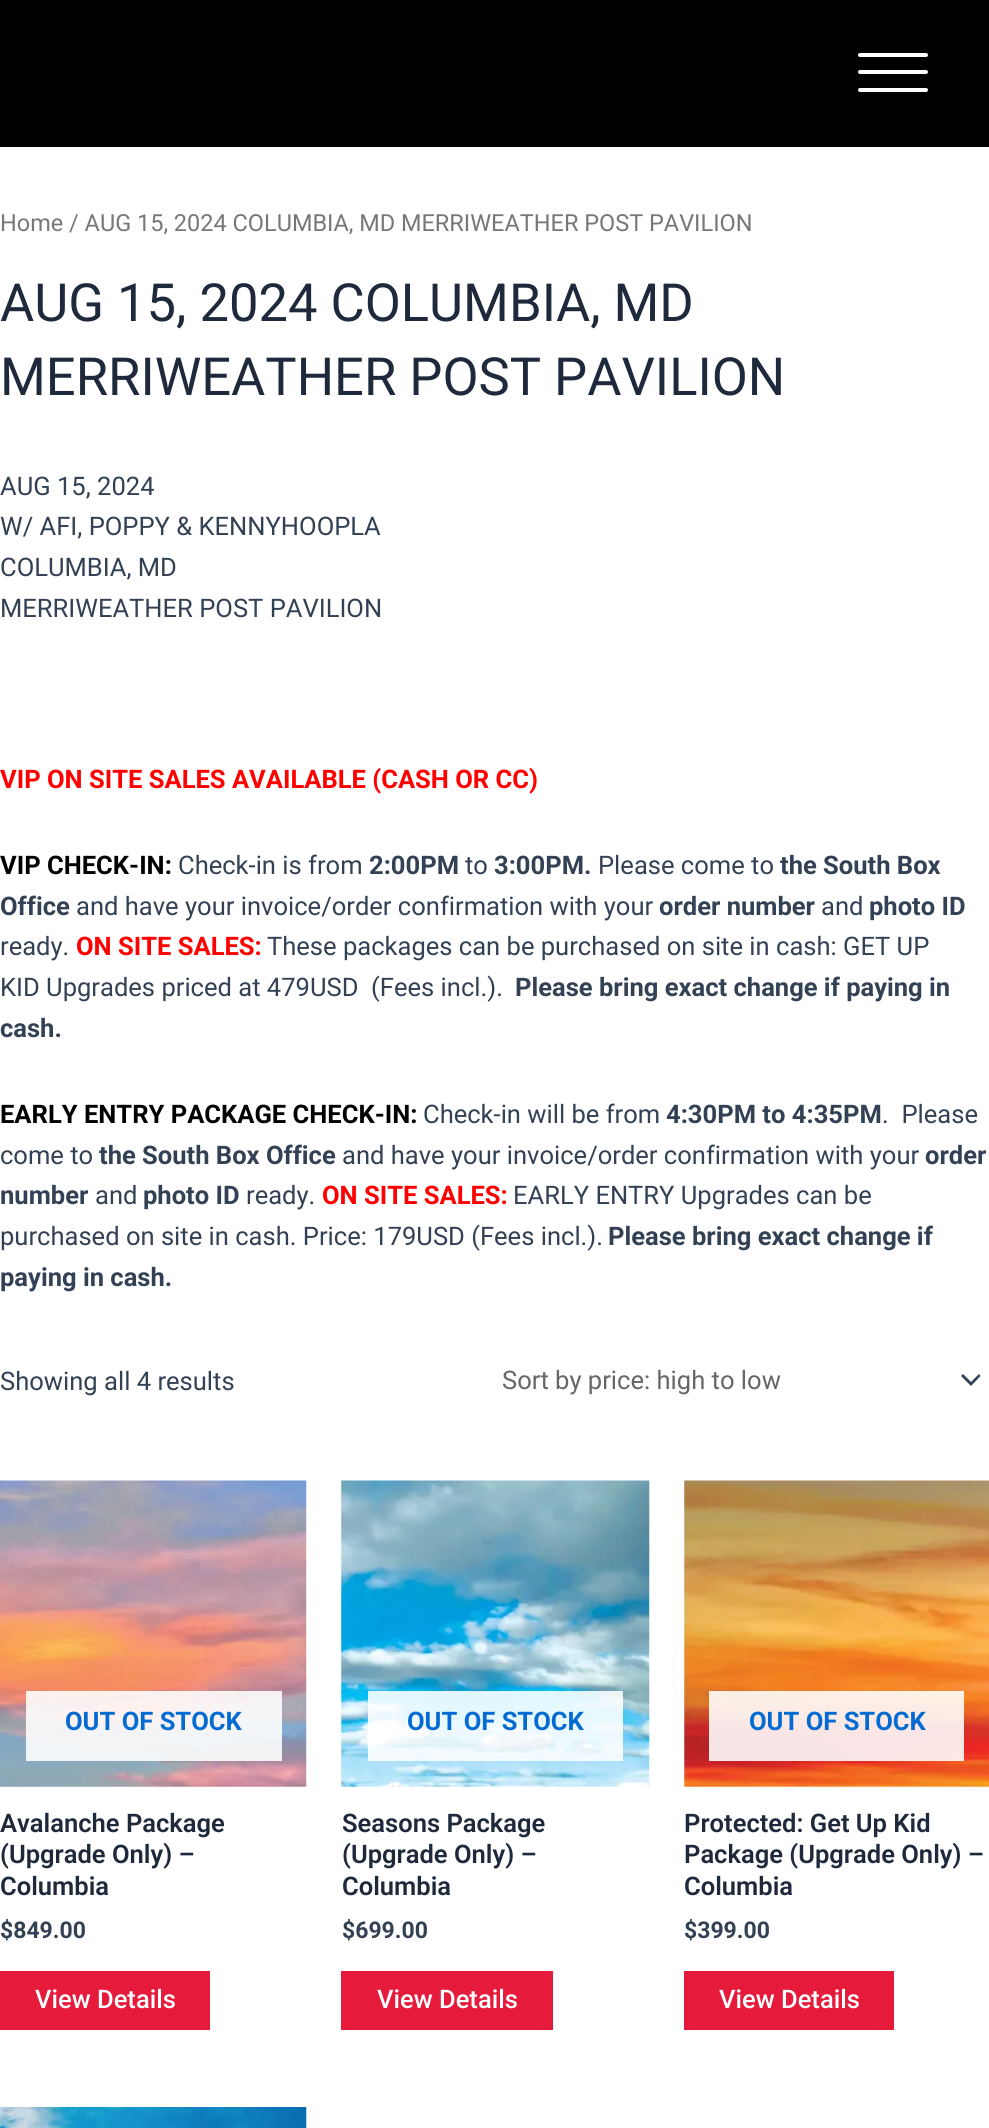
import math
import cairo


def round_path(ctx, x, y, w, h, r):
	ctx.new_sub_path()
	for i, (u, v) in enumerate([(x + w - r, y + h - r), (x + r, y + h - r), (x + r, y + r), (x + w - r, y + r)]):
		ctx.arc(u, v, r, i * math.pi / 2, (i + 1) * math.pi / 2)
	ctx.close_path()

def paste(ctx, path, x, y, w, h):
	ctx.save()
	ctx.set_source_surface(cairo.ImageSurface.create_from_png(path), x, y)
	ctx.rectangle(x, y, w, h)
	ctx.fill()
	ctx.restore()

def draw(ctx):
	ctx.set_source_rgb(1, 1, 1)
	ctx.paint()
	ctx.set_source_rgb(0, 0, 0)
	ctx.rectangle(0, 0, 989, 147)
	ctx.fill()
	ctx.set_source_rgb(1, 1, 1)
	round_path(ctx, 858, 53, 70, 4, 2)
	ctx.fill()
	round_path(ctx, 858, 70, 70, 4, 2)
	ctx.fill()
	round_path(ctx, 858, 88, 70, 4, 2)
	ctx.fill()
	ctx.select_font_face('Roboto')
	ctx.set_font_size(23.5)
	ctx.set_source_rgb(0.467, 0.467, 0.467)
	ctx.move_to(0, 231)
	ctx.show_text('Home / AUG 15, 2024 COLUMBIA, MD MERRIWEATHER POST PAVILION')
	ctx.set_font_size(52.5)
	ctx.set_source_rgb(0.118, 0.161, 0.231)
	ctx.move_to(0, 321)
	ctx.show_text('AUG 15, 2024 COLUMBIA, MD')
	ctx.move_to(0, 395)
	ctx.show_text('MERRIWEATHER POST PAVILION')
	ctx.set_font_size(25.55)
	ctx.set_source_rgb(0.2, 0.255, 0.333)
	for x, y, s in [
		(0, 495, 'AUG 15, 2024'),
		(0, 535, 'W/ AFI, POPPY & KENNYHOOPLA'),
		(0, 576, 'COLUMBIA, MD'),
		(0, 617, 'MERRIWEATHER POST PAVILION'),
	]:
		ctx.move_to(x, y)
		ctx.show_text(s)
	ctx.select_font_face('Roboto', cairo.FONT_SLANT_NORMAL, cairo.FONT_WEIGHT_BOLD)
	ctx.set_source_rgb(1, 0, 0)
	ctx.move_to(0, 788)
	ctx.show_text('VIP ON SITE SALES AVAILABLE (CASH OR CC)')
	ctx.set_source_rgb(0, 0, 0)
	ctx.move_to(0, 874)
	ctx.show_text('VIP CHECK-IN:')
	ctx.select_font_face('Roboto')
	ctx.set_source_rgb(0.2, 0.255, 0.333)
	ctx.move_to(178, 874)
	ctx.show_text('Check-in is from')
	ctx.select_font_face('Roboto', cairo.FONT_SLANT_NORMAL, cairo.FONT_WEIGHT_BOLD)
	ctx.move_to(369, 874)
	ctx.show_text('2:00PM')
	ctx.select_font_face('Roboto')
	ctx.move_to(465, 874)
	ctx.show_text('to')
	ctx.select_font_face('Roboto', cairo.FONT_SLANT_NORMAL, cairo.FONT_WEIGHT_BOLD)
	ctx.move_to(494, 874)
	ctx.show_text('3:00PM.')
	ctx.select_font_face('Roboto')
	ctx.move_to(598, 874)
	ctx.show_text('Please come to')
	ctx.select_font_face('Roboto', cairo.FONT_SLANT_NORMAL, cairo.FONT_WEIGHT_BOLD)
	ctx.move_to(780, 874)
	ctx.show_text('the South Box')
	ctx.move_to(0, 915)
	ctx.show_text('Office')
	ctx.select_font_face('Roboto')
	ctx.move_to(76, 915)
	ctx.show_text('and have your invoice/order confirmation with your')
	ctx.select_font_face('Roboto', cairo.FONT_SLANT_NORMAL, cairo.FONT_WEIGHT_BOLD)
	ctx.move_to(659, 915)
	ctx.show_text('order number')
	ctx.select_font_face('Roboto')
	ctx.move_to(821, 915)
	ctx.show_text('and')
	ctx.select_font_face('Roboto', cairo.FONT_SLANT_NORMAL, cairo.FONT_WEIGHT_BOLD)
	ctx.move_to(869, 915)
	ctx.show_text('photo ID')
	ctx.select_font_face('Roboto')
	ctx.move_to(0, 955)
	ctx.show_text('ready.')
	ctx.select_font_face('Roboto', cairo.FONT_SLANT_NORMAL, cairo.FONT_WEIGHT_BOLD)
	ctx.set_source_rgb(1, 0, 0)
	ctx.move_to(76, 955)
	ctx.show_text('ON SITE SALES:')
	ctx.select_font_face('Roboto')
	ctx.set_source_rgb(0.2, 0.255, 0.333)
	ctx.move_to(267, 955)
	ctx.show_text('These packages can be purchased on site in cash: GET UP')
	ctx.move_to(0, 996)
	ctx.show_text('KID Upgrades priced at 479USD  (Fees incl.).')
	ctx.select_font_face('Roboto', cairo.FONT_SLANT_NORMAL, cairo.FONT_WEIGHT_BOLD)
	ctx.move_to(515, 996)
	ctx.show_text('Please bring exact change if paying in')
	ctx.move_to(0, 1037)
	ctx.show_text('cash.')
	ctx.set_source_rgb(0, 0, 0)
	ctx.move_to(0, 1123)
	ctx.show_text('EARLY ENTRY PACKAGE CHECK-IN:')
	ctx.select_font_face('Roboto')
	ctx.set_source_rgb(0.2, 0.255, 0.333)
	ctx.move_to(423, 1123)
	ctx.show_text('Check-in will be from')
	ctx.select_font_face('Roboto', cairo.FONT_SLANT_NORMAL, cairo.FONT_WEIGHT_BOLD)
	ctx.move_to(666, 1123)
	ctx.show_text('4:30PM to 4:35PM')
	ctx.select_font_face('Roboto')
	ctx.move_to(882, 1123)
	ctx.show_text('.  Please')
	ctx.move_to(0, 1164)
	ctx.show_text('come to')
	ctx.select_font_face('Roboto', cairo.FONT_SLANT_NORMAL, cairo.FONT_WEIGHT_BOLD)
	ctx.move_to(99, 1164)
	ctx.show_text('the South Box Office')
	ctx.select_font_face('Roboto')
	ctx.move_to(342, 1164)
	ctx.show_text('and have your invoice/order confirmation with your')
	ctx.select_font_face('Roboto', cairo.FONT_SLANT_NORMAL, cairo.FONT_WEIGHT_BOLD)
	ctx.move_to(925, 1164)
	ctx.show_text('order')
	ctx.move_to(0, 1204)
	ctx.show_text('number')
	ctx.select_font_face('Roboto')
	ctx.move_to(95, 1204)
	ctx.show_text('and')
	ctx.select_font_face('Roboto', cairo.FONT_SLANT_NORMAL, cairo.FONT_WEIGHT_BOLD)
	ctx.move_to(143, 1204)
	ctx.show_text('photo ID')
	ctx.select_font_face('Roboto')
	ctx.move_to(246, 1204)
	ctx.show_text('ready.')
	ctx.select_font_face('Roboto', cairo.FONT_SLANT_NORMAL, cairo.FONT_WEIGHT_BOLD)
	ctx.set_source_rgb(1, 0, 0)
	ctx.move_to(322, 1204)
	ctx.show_text('ON SITE SALES:')
	ctx.select_font_face('Roboto')
	ctx.set_source_rgb(0.2, 0.255, 0.333)
	ctx.move_to(513, 1204)
	ctx.show_text('EARLY ENTRY Upgrades can be')
	ctx.move_to(0, 1245)
	ctx.show_text('purchased on site in cash. Price: 179USD (Fees incl.).')
	ctx.select_font_face('Roboto', cairo.FONT_SLANT_NORMAL, cairo.FONT_WEIGHT_BOLD)
	ctx.move_to(608, 1245)
	ctx.show_text('Please bring exact change if')
	ctx.move_to(0, 1286)
	ctx.show_text('paying in cash.')
	ctx.select_font_face('Roboto')
	ctx.move_to(0, 1390)
	ctx.show_text('Showing all 4 results')
	ctx.new_path()
	ctx.move_to(961, 1376)
	ctx.line_to(971, 1386)
	ctx.line_to(980.5, 1376)
	ctx.line_to(979, 1374)
	ctx.line_to(971, 1382)
	ctx.line_to(963, 1374)
	ctx.close_path()
	ctx.fill()
	ctx.set_source_rgb(0.4, 0.4, 0.4)
	ctx.move_to(502, 1389)
	ctx.show_text('Sort by price: high to low')
	paste(ctx, 'media/1.png', 0, 1480, 307, 307)
	ctx.set_source_rgba(1, 1, 1, 0.88)
	ctx.rectangle(26, 1691, 256, 70)
	ctx.fill()
	ctx.select_font_face('Roboto', cairo.FONT_SLANT_NORMAL, cairo.FONT_WEIGHT_BOLD)
	ctx.set_source_rgb(0.016, 0.42, 0.824)
	ctx.move_to(65, 1730)
	ctx.show_text('OUT OF STOCK')
	ctx.select_font_face('Roboto SemiBold')
	ctx.set_source_rgb(0.118, 0.161, 0.231)
	for x, y, s in [
		(0, 1832, 'Avalanche Package'),
		(0, 1863, '(Upgrade Only) –'),
		(0, 1895, 'Columbia'),
	]:
		ctx.move_to(x, y)
		ctx.show_text(s)
	ctx.select_font_face('Roboto', cairo.FONT_SLANT_NORMAL, cairo.FONT_WEIGHT_BOLD)
	ctx.set_font_size(23)
	ctx.set_source_rgb(0.2, 0.255, 0.333)
	ctx.move_to(0, 1938)
	ctx.show_text('$849.00')
	ctx.set_source_rgb(0.902, 0.106, 0.235)
	ctx.rectangle(0, 1971, 210, 59)
	ctx.fill()
	ctx.select_font_face('Roboto Medium')
	ctx.set_font_size(25.55)
	ctx.set_source_rgb(1, 1, 1)
	ctx.move_to(35, 2008)
	ctx.show_text('View Details')
	paste(ctx, 'media/2.png', 341, 1480, 309, 307)
	ctx.set_source_rgba(1, 1, 1, 0.88)
	ctx.rectangle(368, 1691, 255, 70)
	ctx.fill()
	ctx.select_font_face('Roboto', cairo.FONT_SLANT_NORMAL, cairo.FONT_WEIGHT_BOLD)
	ctx.set_source_rgb(0.016, 0.42, 0.824)
	ctx.move_to(407, 1730)
	ctx.show_text('OUT OF STOCK')
	ctx.select_font_face('Roboto SemiBold')
	ctx.set_source_rgb(0.118, 0.161, 0.231)
	for x, y, s in [
		(342, 1832, 'Seasons Package'),
		(342, 1863, '(Upgrade Only) –'),
		(342, 1895, 'Columbia'),
	]:
		ctx.move_to(x, y)
		ctx.show_text(s)
	ctx.select_font_face('Roboto', cairo.FONT_SLANT_NORMAL, cairo.FONT_WEIGHT_BOLD)
	ctx.set_font_size(23)
	ctx.set_source_rgb(0.2, 0.255, 0.333)
	ctx.move_to(342, 1938)
	ctx.show_text('$699.00')
	ctx.set_source_rgb(0.902, 0.106, 0.235)
	ctx.rectangle(341, 1971, 212, 59)
	ctx.fill()
	ctx.select_font_face('Roboto Medium')
	ctx.set_font_size(25.55)
	ctx.set_source_rgb(1, 1, 1)
	ctx.move_to(377, 2008)
	ctx.show_text('View Details')
	paste(ctx, 'media/3.png', 684, 1480, 305, 307)
	ctx.set_source_rgba(1, 1, 1, 0.88)
	ctx.rectangle(709, 1691, 255, 70)
	ctx.fill()
	ctx.select_font_face('Roboto', cairo.FONT_SLANT_NORMAL, cairo.FONT_WEIGHT_BOLD)
	ctx.set_source_rgb(0.016, 0.42, 0.824)
	ctx.move_to(749, 1730)
	ctx.show_text('OUT OF STOCK')
	ctx.select_font_face('Roboto SemiBold')
	ctx.set_source_rgb(0.118, 0.161, 0.231)
	for x, y, s in [
		(684, 1832, 'Protected: Get Up Kid'),
		(684, 1863, 'Package (Upgrade Only) –'),
		(684, 1895, 'Columbia'),
	]:
		ctx.move_to(x, y)
		ctx.show_text(s)
	ctx.select_font_face('Roboto', cairo.FONT_SLANT_NORMAL, cairo.FONT_WEIGHT_BOLD)
	ctx.set_font_size(23)
	ctx.set_source_rgb(0.2, 0.255, 0.333)
	ctx.move_to(684, 1938)
	ctx.show_text('$399.00')
	ctx.set_source_rgb(0.902, 0.106, 0.235)
	ctx.rectangle(684, 1971, 210, 59)
	ctx.fill()
	ctx.select_font_face('Roboto Medium')
	ctx.set_font_size(25.55)
	ctx.set_source_rgb(1, 1, 1)
	ctx.move_to(719, 2008)
	ctx.show_text('View Details')
	paste(ctx, 'media/4.png', 0, 2107, 307, 21)


surface = cairo.ImageSurface(cairo.FORMAT_RGB24, 989, 2128)
ctx = cairo.Context(surface)
options = cairo.FontOptions()
options.set_hint_metrics(cairo.HINT_METRICS_OFF)
options.set_hint_style(cairo.HINT_STYLE_NONE)
ctx.set_font_options(options)
ctx.set_miter_limit(4)
draw(ctx)
surface.write_to_png('image.png')
